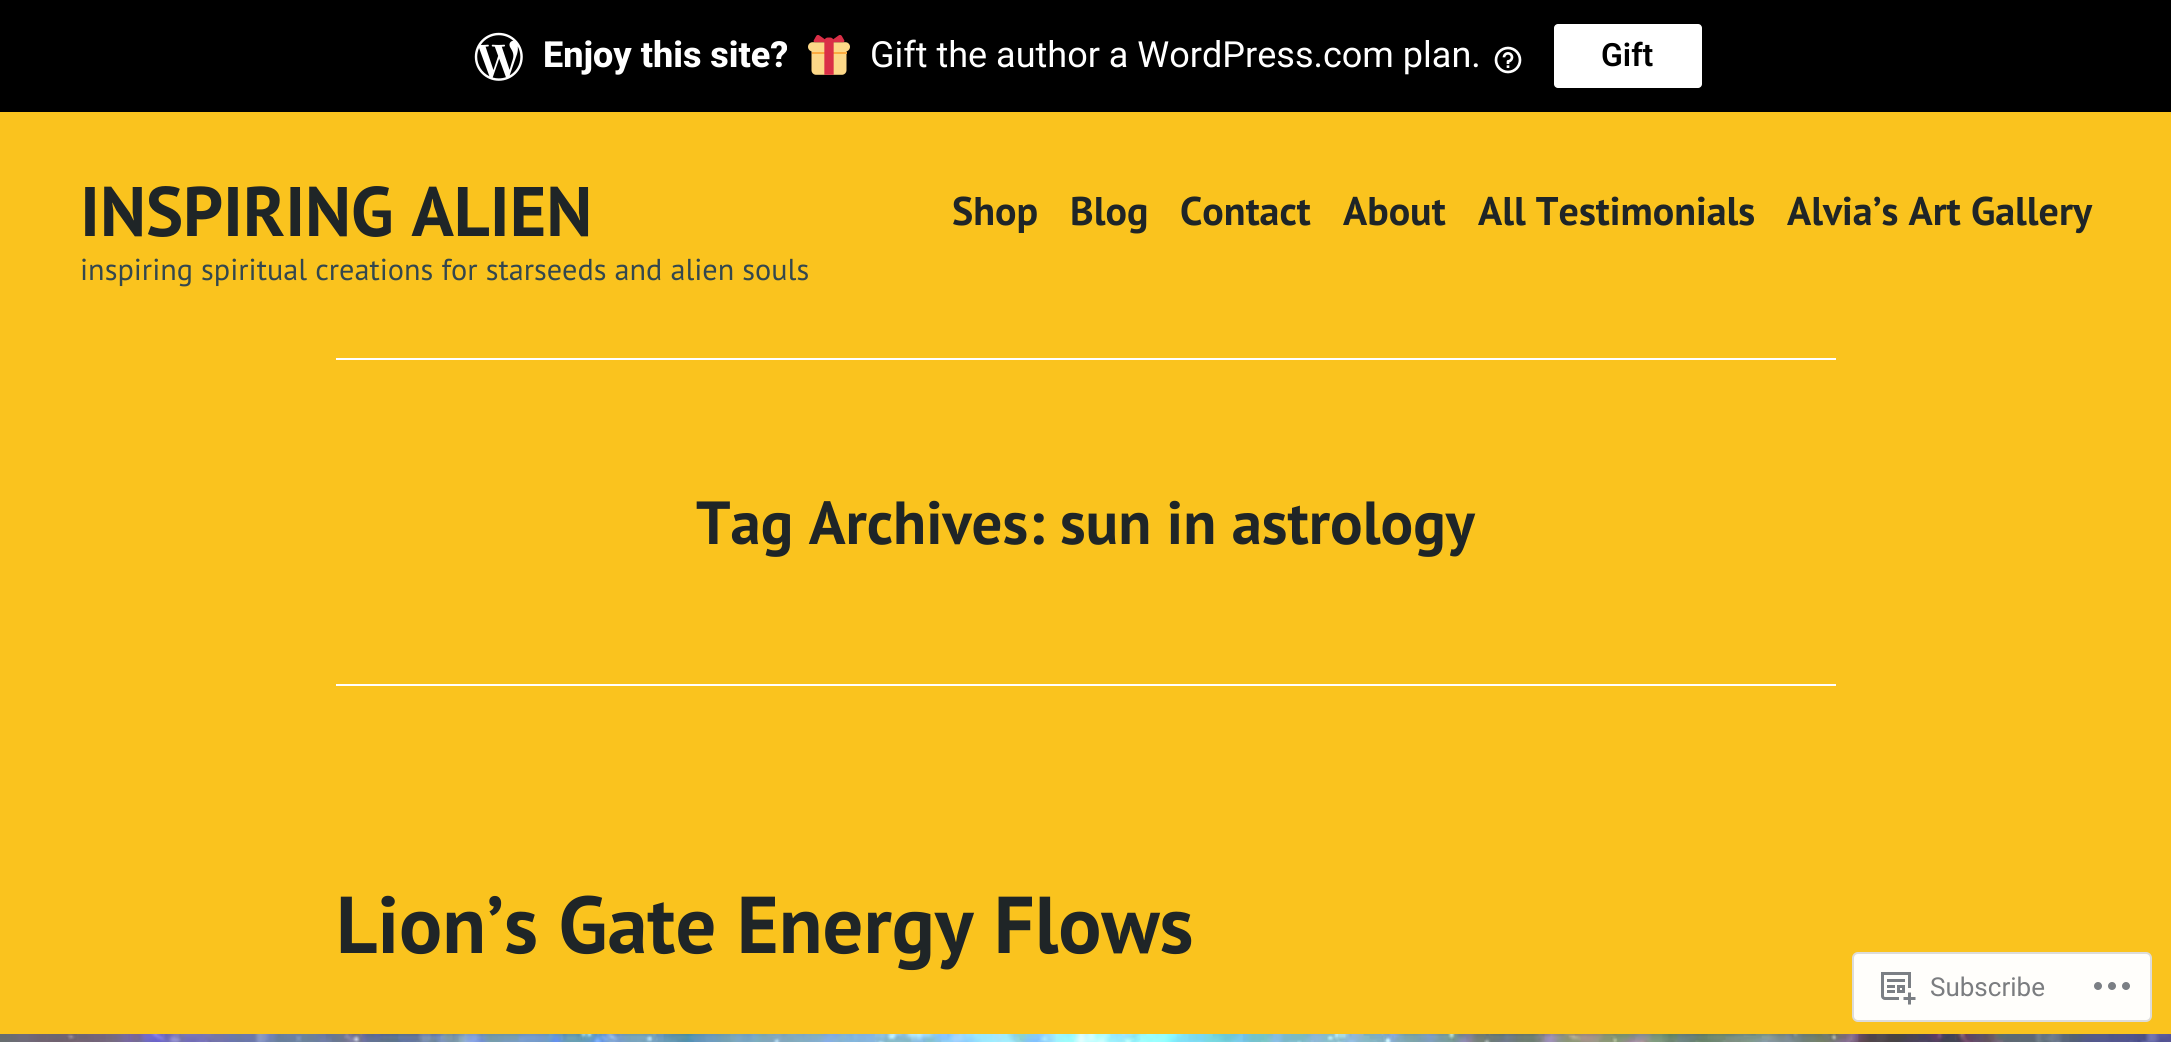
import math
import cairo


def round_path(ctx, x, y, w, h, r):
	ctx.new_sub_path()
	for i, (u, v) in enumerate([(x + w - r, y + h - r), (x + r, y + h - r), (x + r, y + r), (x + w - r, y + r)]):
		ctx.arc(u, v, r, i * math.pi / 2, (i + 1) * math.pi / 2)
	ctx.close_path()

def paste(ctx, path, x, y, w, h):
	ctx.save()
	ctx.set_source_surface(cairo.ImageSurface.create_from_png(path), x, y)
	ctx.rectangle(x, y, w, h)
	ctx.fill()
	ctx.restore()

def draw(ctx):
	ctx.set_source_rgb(0.98, 0.765, 0.118)
	ctx.paint()
	ctx.set_source_rgb(0, 0, 0)
	ctx.rectangle(0, 0, 2171, 112)
	ctx.fill()
	paste(ctx, 'media/1.png', 474, 32, 49, 49)
	ctx.select_font_face('Roboto ExtraBold')
	ctx.set_font_size(36)
	ctx.set_source_rgb(1, 1, 1)
	ctx.move_to(543, 67)
	ctx.show_text('Enjoy this site?')
	paste(ctx, 'media/2.png', 808, 35, 42, 40)
	ctx.select_font_face('Roboto')
	ctx.move_to(870, 67)
	ctx.show_text('Gift the author a WordPress.com plan.')
	paste(ctx, 'media/3.png', 1494, 46, 28, 28)
	round_path(ctx, 1554, 24, 148, 64, 4)
	ctx.fill()
	ctx.select_font_face('Roboto SemiBold')
	ctx.set_font_size(32)
	ctx.set_source_rgb(0, 0, 0)
	ctx.move_to(1601, 66)
	ctx.show_text('Gift')
	ctx.select_font_face('PT Sans', cairo.FONT_SLANT_NORMAL, cairo.FONT_WEIGHT_BOLD)
	ctx.set_font_size(70)
	ctx.set_source_rgb(0.122, 0.145, 0.153)
	ctx.move_to(80, 236)
	ctx.show_text('INSPIRING ALIEN')
	ctx.set_font_size(40)
	for x, y, s in [
		(952, 225, 'Shop'),
		(1070, 225, 'Blog'),
		(1180, 225, 'Contact'),
		(1343, 225, 'About'),
		(1478, 225, 'All Testimonials'),
		(1787, 225, 'Alvia’s Art Gallery'),
	]:
		ctx.move_to(x, y)
		ctx.show_text(s)
	ctx.select_font_face('PT Sans')
	ctx.set_font_size(30.25)
	ctx.set_source_rgb(0.2, 0.278, 0.306)
	ctx.move_to(80, 280)
	ctx.show_text('inspiring spiritual creations for starseeds and alien souls')
	ctx.set_source_rgb(1, 1, 1)
	ctx.rectangle(336, 358, 1500, 2)
	ctx.fill()
	ctx.select_font_face('PT Sans', cairo.FONT_SLANT_NORMAL, cairo.FONT_WEIGHT_BOLD)
	ctx.set_font_size(60.8)
	ctx.set_source_rgb(0.122, 0.145, 0.153)
	ctx.move_to(696, 544)
	ctx.show_text('Tag Archives: sun in astrology')
	ctx.set_source_rgb(1, 1, 1)
	ctx.rectangle(336, 684, 1500, 2)
	ctx.fill()
	ctx.set_font_size(80.5)
	ctx.set_source_rgb(0.122, 0.145, 0.153)
	ctx.move_to(336, 953)
	ctx.show_text('Lion’s Gate Energy Flows')
	paste(ctx, 'media/4.png', 0, 1034, 2171, 8)
	ctx.set_source_rgb(1, 0.996, 0.984)
	round_path(ctx, 1853, 953, 298, 68, 5)
	ctx.fill_preserve()
	ctx.set_source_rgb(0.867, 0.863, 0.855)
	ctx.stroke()
	paste(ctx, 'media/5.png', 1881, 972, 35, 33)
	ctx.select_font_face('Roboto')
	ctx.set_font_size(26)
	ctx.set_source_rgb(0.482, 0.49, 0.502)
	ctx.move_to(1930, 996)
	ctx.show_text('Subscribe')
	paste(ctx, 'media/6.png', 2094, 982, 36, 8)


surface = cairo.ImageSurface(cairo.FORMAT_RGB24, 2171, 1042)
ctx = cairo.Context(surface)
options = cairo.FontOptions()
options.set_hint_metrics(cairo.HINT_METRICS_OFF)
options.set_hint_style(cairo.HINT_STYLE_NONE)
ctx.set_font_options(options)
ctx.set_miter_limit(4)
draw(ctx)
surface.write_to_png('image.png')
